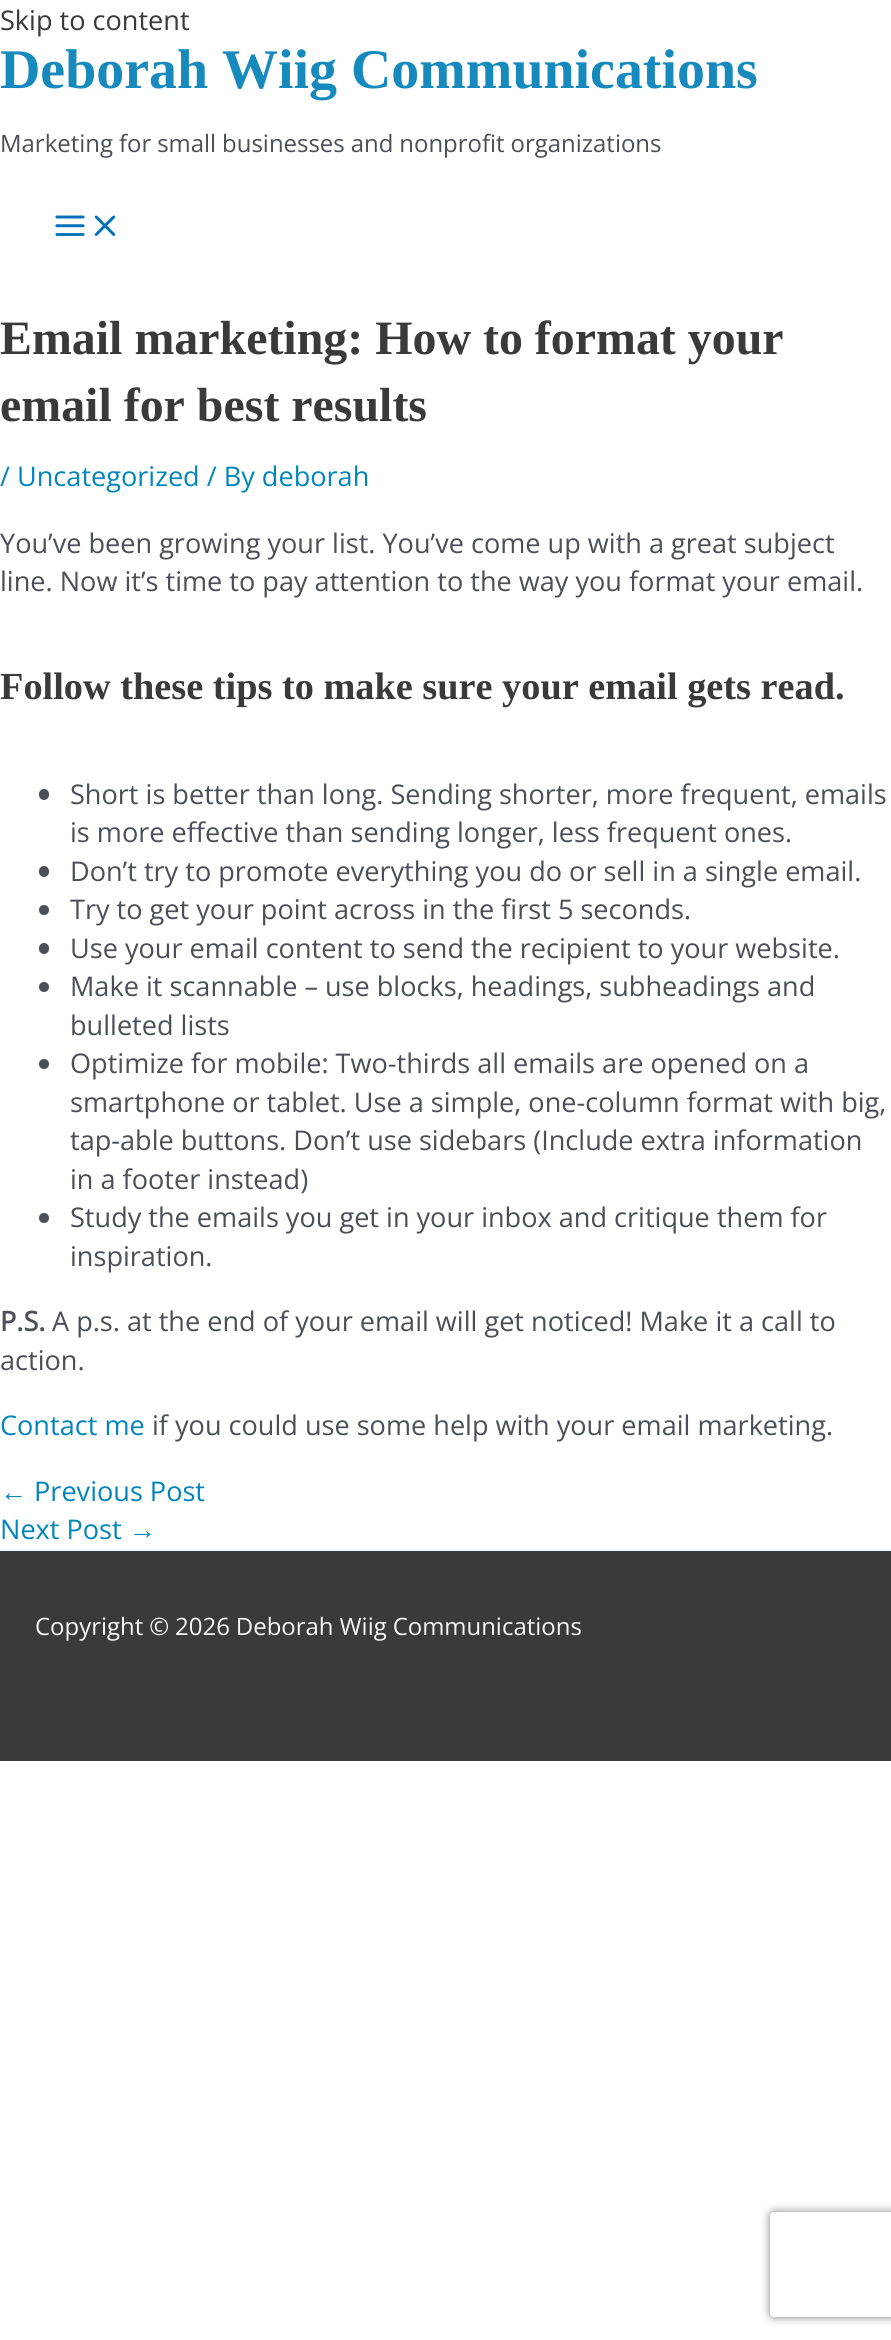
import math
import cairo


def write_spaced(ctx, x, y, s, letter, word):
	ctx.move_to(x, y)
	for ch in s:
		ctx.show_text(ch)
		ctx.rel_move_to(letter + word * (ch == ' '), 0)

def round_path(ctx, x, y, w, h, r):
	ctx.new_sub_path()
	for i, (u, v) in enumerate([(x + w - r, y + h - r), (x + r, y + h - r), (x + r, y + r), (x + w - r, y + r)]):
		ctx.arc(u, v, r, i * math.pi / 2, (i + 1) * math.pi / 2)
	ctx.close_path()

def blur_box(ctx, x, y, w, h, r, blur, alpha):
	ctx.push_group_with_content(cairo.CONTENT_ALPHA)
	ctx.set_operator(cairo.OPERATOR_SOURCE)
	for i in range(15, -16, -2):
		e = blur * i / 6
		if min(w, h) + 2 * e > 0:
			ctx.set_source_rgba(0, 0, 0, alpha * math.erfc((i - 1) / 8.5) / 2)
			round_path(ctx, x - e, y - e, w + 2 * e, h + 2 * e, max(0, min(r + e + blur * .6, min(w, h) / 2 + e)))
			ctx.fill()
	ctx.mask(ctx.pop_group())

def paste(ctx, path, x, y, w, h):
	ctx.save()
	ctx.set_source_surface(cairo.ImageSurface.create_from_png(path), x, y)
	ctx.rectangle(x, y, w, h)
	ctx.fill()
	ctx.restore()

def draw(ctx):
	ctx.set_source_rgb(1, 1, 1)
	ctx.paint()
	ctx.select_font_face('Open Sans')
	ctx.set_font_size(27.1)
	ctx.set_source_rgb(0.227, 0.227, 0.227)
	ctx.move_to(0, 30)
	ctx.show_text('Skip to content')
	ctx.select_font_face('Liberation Serif', cairo.FONT_SLANT_NORMAL, cairo.FONT_WEIGHT_BOLD)
	ctx.set_font_size(55.9)
	ctx.set_source_rgb(0.086, 0.541, 0.737)
	ctx.move_to(0, 88)
	ctx.show_text('Deborah Wiig Communications')
	ctx.select_font_face('Open Sans')
	ctx.set_font_size(23.95)
	ctx.set_source_rgb(0.294, 0.31, 0.345)
	write_spaced(ctx, 0, 152, 'Marketing for small businesses and nonprofit organizations', 0, -0.25)
	paste(ctx, 'media/1.png', 55, 215, 30, 21)
	paste(ctx, 'media/2.png', 94, 215, 22, 21)
	ctx.select_font_face('Liberation Serif', cairo.FONT_SLANT_NORMAL, cairo.FONT_WEIGHT_BOLD)
	ctx.set_font_size(47.9)
	ctx.set_source_rgb(0.227, 0.227, 0.227)
	ctx.move_to(0, 354)
	ctx.show_text('Email marketing: How to format your')
	ctx.move_to(0, 421)
	ctx.show_text('email for best results')
	ctx.select_font_face('Open Sans')
	ctx.set_font_size(27.1)
	ctx.set_source_rgb(0.004, 0.522, 0.741)
	ctx.move_to(0, 486)
	ctx.show_text('/ Uncategorized / By deborah')
	ctx.set_source_rgb(0.294, 0.31, 0.345)
	ctx.move_to(0, 553)
	ctx.show_text('You’ve been growing your list. You’ve come up with a great subject')
	ctx.move_to(0, 591)
	ctx.show_text('line. Now it’s time to pay attention to the way you format your email.')
	ctx.select_font_face('Liberation Serif', cairo.FONT_SLANT_NORMAL, cairo.FONT_WEIGHT_BOLD)
	ctx.set_font_size(38.3)
	ctx.set_source_rgb(0.227, 0.227, 0.227)
	ctx.move_to(0, 699)
	ctx.show_text('Follow these tips to make sure your email gets read.')
	ctx.set_source_rgb(0.294, 0.31, 0.345)
	round_path(ctx, 39, 789, 10, 11, 5)
	ctx.fill()
	ctx.select_font_face('Open Sans')
	ctx.set_font_size(27.1)
	ctx.move_to(70, 804)
	ctx.show_text('Short is better than long. Sending shorter, more frequent, emails')
	ctx.move_to(70, 842)
	ctx.show_text('is more effective than sending longer, less frequent ones.')
	round_path(ctx, 39, 866, 10, 11, 5)
	ctx.fill()
	ctx.move_to(70, 881)
	ctx.show_text('Don’t try to promote everything you do or sell in a single email.')
	ctx.new_path()
	ctx.arc(44, 910, 5, 0, 2 * math.pi)
	ctx.fill()
	ctx.move_to(70, 919)
	ctx.show_text('Try to get your point across in the first 5 seconds.')
	round_path(ctx, 39, 943, 10, 11, 5)
	ctx.fill()
	ctx.move_to(70, 958)
	ctx.show_text('Use your email content to send the recipient to your website.')
	ctx.new_path()
	ctx.arc(44, 987, 5, 0, 2 * math.pi)
	ctx.fill()
	ctx.move_to(70, 996)
	ctx.show_text('Make it scannable – use blocks, headings, subheadings and')
	ctx.move_to(70, 1035)
	ctx.show_text('bulleted lists')
	ctx.new_path()
	ctx.arc(44, 1064, 5, 0, 2 * math.pi)
	ctx.fill()
	for x, y, s in [
		(70, 1073, 'Optimize for mobile: Two-thirds all emails are opened on a'),
		(70, 1112, 'smartphone or tablet. Use a simple, one-column format with big,'),
		(70, 1150, 'tap-able buttons. Don’t use sidebars (Include extra information'),
		(70, 1189, 'in a footer instead)'),
	]:
		ctx.move_to(x, y)
		ctx.show_text(s)
	ctx.new_path()
	ctx.arc(44, 1218, 5, 0, 2 * math.pi)
	ctx.fill()
	ctx.move_to(70, 1227)
	ctx.show_text('Study the emails you get in your inbox and critique them for')
	ctx.move_to(70, 1266)
	ctx.show_text('inspiration.')
	ctx.select_font_face('Open Sans', cairo.FONT_SLANT_NORMAL, cairo.FONT_WEIGHT_BOLD)
	ctx.move_to(0, 1331)
	ctx.show_text('P.S.')
	ctx.select_font_face('Open Sans')
	ctx.move_to(52, 1331)
	ctx.show_text('A p.s. at the end of your email will get noticed! Make it a call to')
	ctx.move_to(0, 1370)
	ctx.show_text('action.')
	ctx.set_source_rgb(0.004, 0.522, 0.741)
	ctx.move_to(0, 1435)
	ctx.show_text('Contact me')
	ctx.set_source_rgb(0.294, 0.31, 0.345)
	ctx.move_to(152, 1435)
	ctx.show_text('if you could use some help with your email marketing.')
	ctx.select_font_face('Liberation Sans')
	ctx.set_source_rgb(0.004, 0.522, 0.741)
	ctx.move_to(0, 1501)
	ctx.show_text('←')
	ctx.select_font_face('Open Sans')
	ctx.move_to(34, 1501)
	ctx.show_text('Previous Post')
	ctx.move_to(0, 1539)
	ctx.show_text('Next Post')
	ctx.select_font_face('Liberation Sans')
	ctx.move_to(129, 1539)
	ctx.show_text('→')
	ctx.set_source_rgb(0.227, 0.227, 0.227)
	ctx.rectangle(0, 1551, 891, 210)
	ctx.fill()
	ctx.set_source_rgb(0.949, 0.961, 0.969)
	ctx.rectangle(0, 1549, 891, 2)
	ctx.fill()
	ctx.select_font_face('Open Sans')
	ctx.set_font_size(23.95)
	ctx.set_source_rgb(0.961, 0.961, 0.961)
	write_spaced(ctx, 35, 1635, 'Copyright © 2026 Deborah Wiig Communications', 0, -0.25)
	ctx.save()
	ctx.set_fill_rule(cairo.FILL_RULE_EVEN_ODD)
	ctx.new_path()
	ctx.move_to(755, 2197)
	ctx.line_to(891, 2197)
	ctx.line_to(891, 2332)
	ctx.line_to(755, 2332)
	ctx.close_path()
	ctx.move_to(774, 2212)
	ctx.line_to(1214, 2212)
	ctx.curve_to(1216, 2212, 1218, 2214, 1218, 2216)
	ctx.line_to(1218, 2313)
	ctx.curve_to(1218, 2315, 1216, 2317, 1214, 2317)
	ctx.line_to(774, 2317)
	ctx.curve_to(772, 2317, 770, 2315, 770, 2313)
	ctx.line_to(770, 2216)
	ctx.curve_to(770, 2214, 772, 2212, 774, 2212)
	ctx.close_path()
	ctx.clip()
	ctx.set_source_rgb(0.502, 0.502, 0.502)
	blur_box(ctx, 770, 2212, 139, 105, 4, 4.5, 1)
	ctx.restore()


surface = cairo.ImageSurface(cairo.FORMAT_RGB24, 891, 2340)
ctx = cairo.Context(surface)
options = cairo.FontOptions()
options.set_hint_metrics(cairo.HINT_METRICS_OFF)
options.set_hint_style(cairo.HINT_STYLE_NONE)
ctx.set_font_options(options)
ctx.set_miter_limit(4)
draw(ctx)
surface.write_to_png('image.png')
